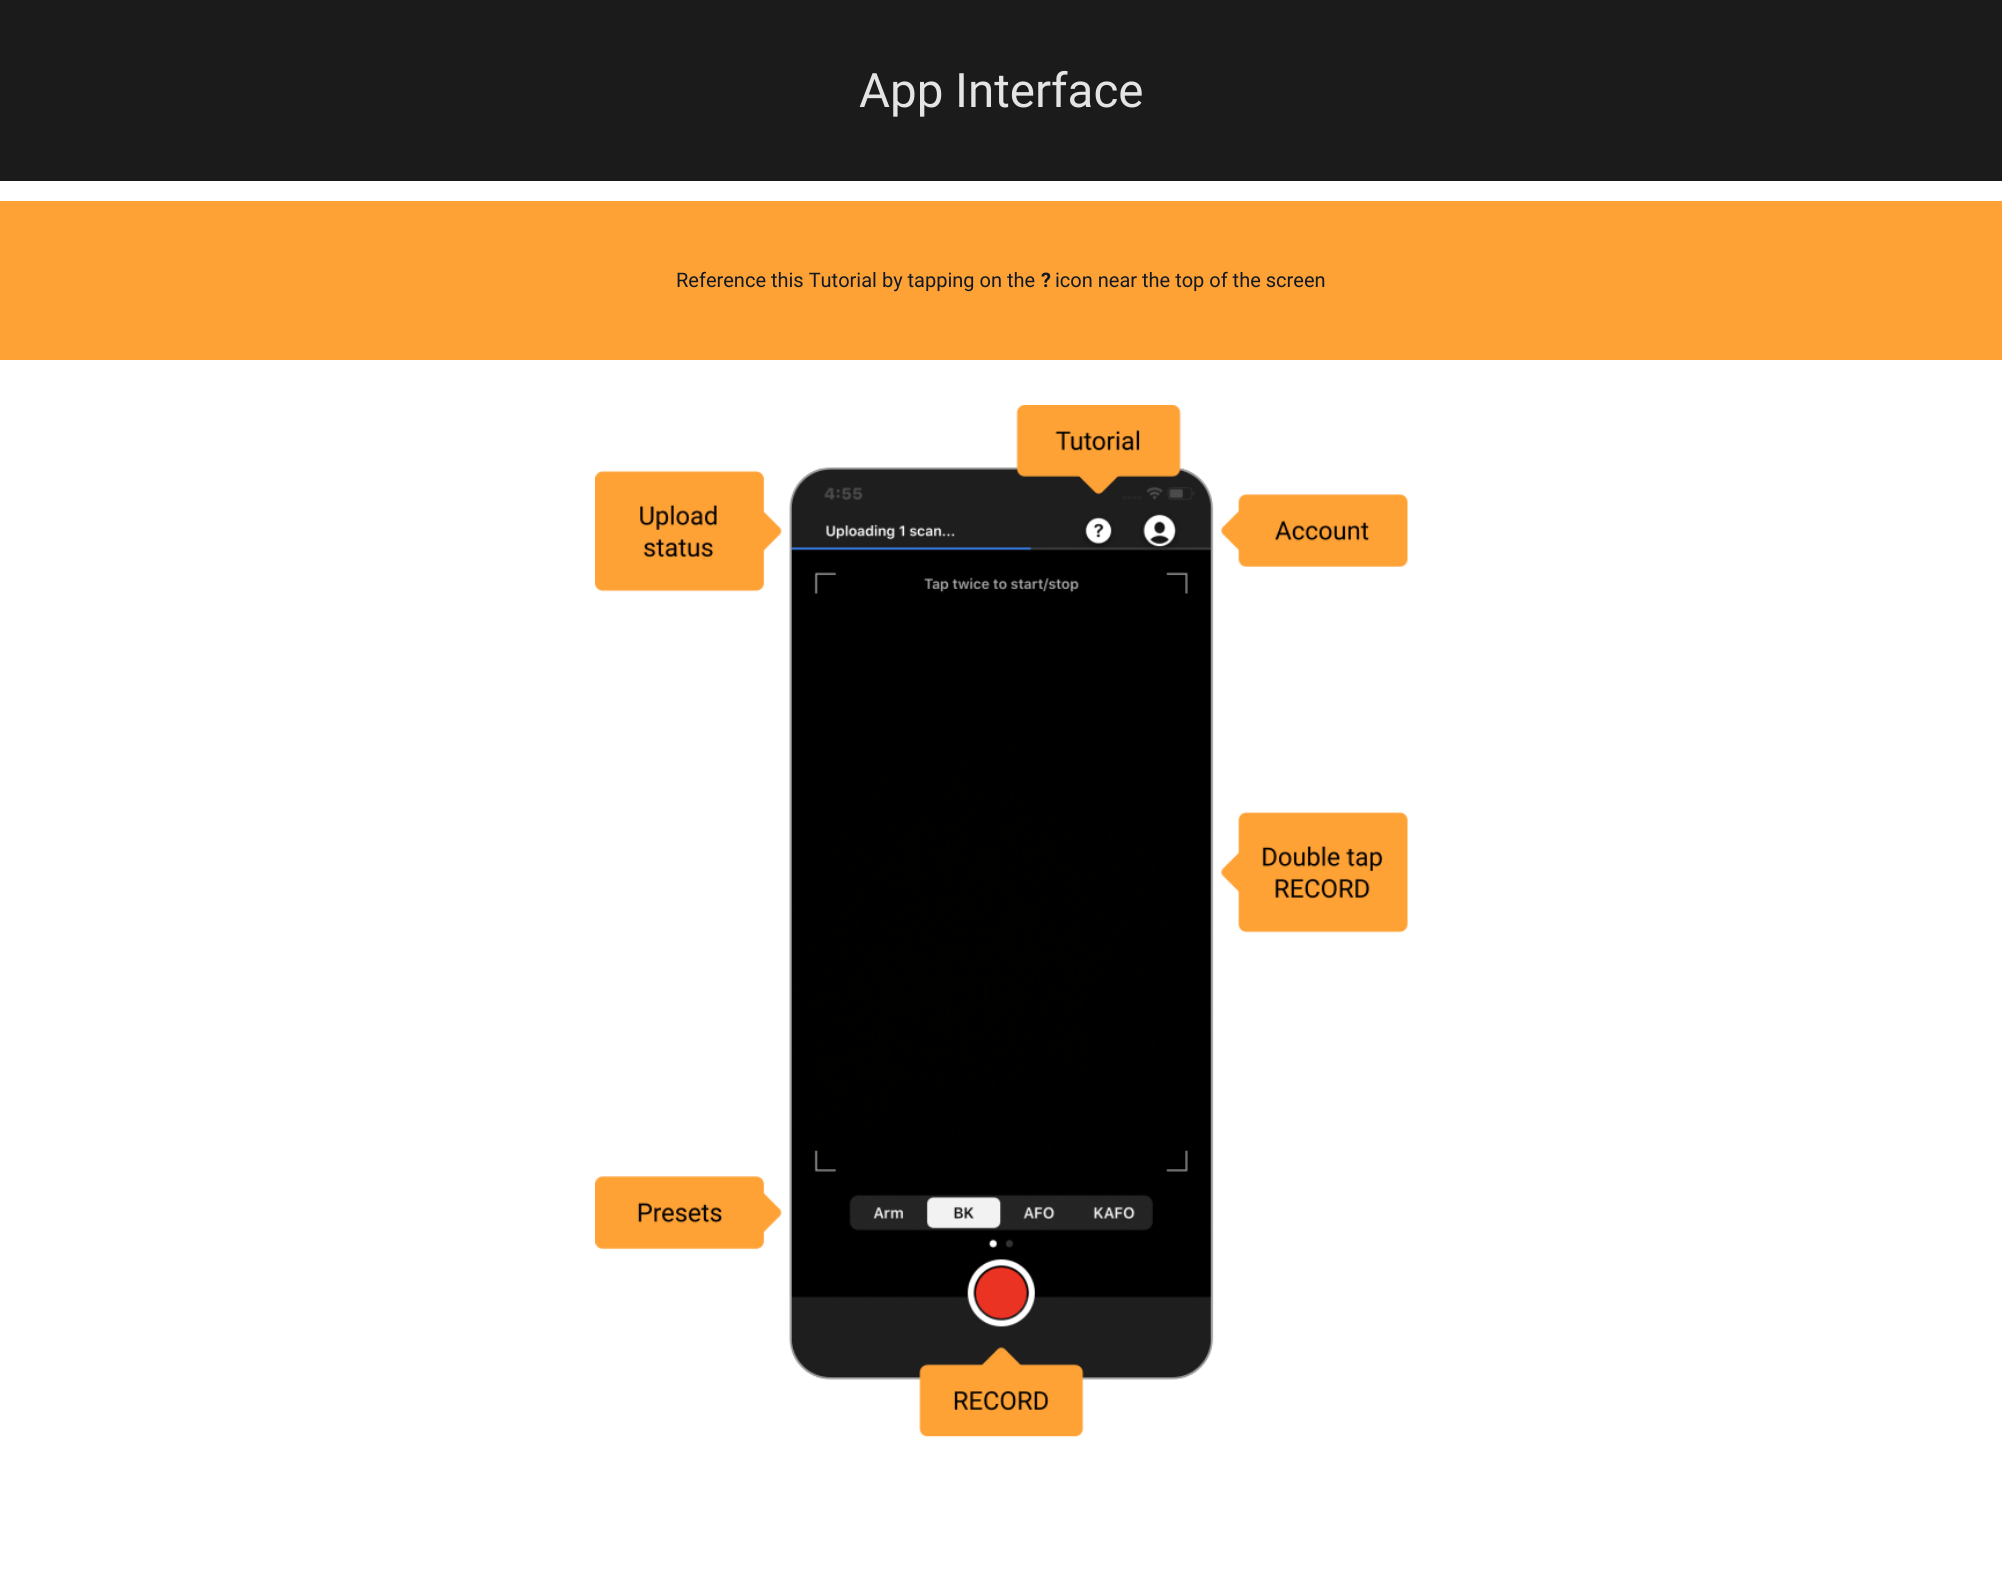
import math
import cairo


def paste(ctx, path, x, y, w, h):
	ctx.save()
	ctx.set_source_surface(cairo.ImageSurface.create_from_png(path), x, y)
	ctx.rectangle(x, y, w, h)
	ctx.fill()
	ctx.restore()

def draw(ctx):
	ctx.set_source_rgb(1, 1, 1)
	ctx.paint()
	ctx.set_source_rgb(0.106, 0.106, 0.11)
	ctx.rectangle(0, 0, 2002, 181)
	ctx.fill()
	ctx.select_font_face('Roboto')
	ctx.set_font_size(47.5)
	ctx.set_source_rgb(0.894, 0.894, 0.894)
	ctx.move_to(859, 107)
	ctx.show_text('App Interface')
	ctx.set_source_rgb(0.996, 0.635, 0.212)
	ctx.rectangle(0, 201, 2002, 159)
	ctx.fill()
	ctx.set_font_size(20)
	ctx.set_source_rgb(0.075, 0.098, 0.137)
	ctx.move_to(676, 287)
	ctx.show_text('Reference this Tutorial by tapping on the')
	ctx.select_font_face('Roboto', cairo.FONT_SLANT_NORMAL, cairo.FONT_WEIGHT_BOLD)
	ctx.move_to(1041, 287)
	ctx.show_text('?')
	ctx.select_font_face('Roboto')
	ctx.move_to(1055, 287)
	ctx.show_text('icon near the top of the screen')
	paste(ctx, 'media/1.png', 595, 405, 813, 1032)


surface = cairo.ImageSurface(cairo.FORMAT_RGB24, 2002, 1587)
ctx = cairo.Context(surface)
options = cairo.FontOptions()
options.set_hint_metrics(cairo.HINT_METRICS_OFF)
options.set_hint_style(cairo.HINT_STYLE_NONE)
ctx.set_font_options(options)
ctx.set_miter_limit(4)
draw(ctx)
surface.write_to_png('image.png')
